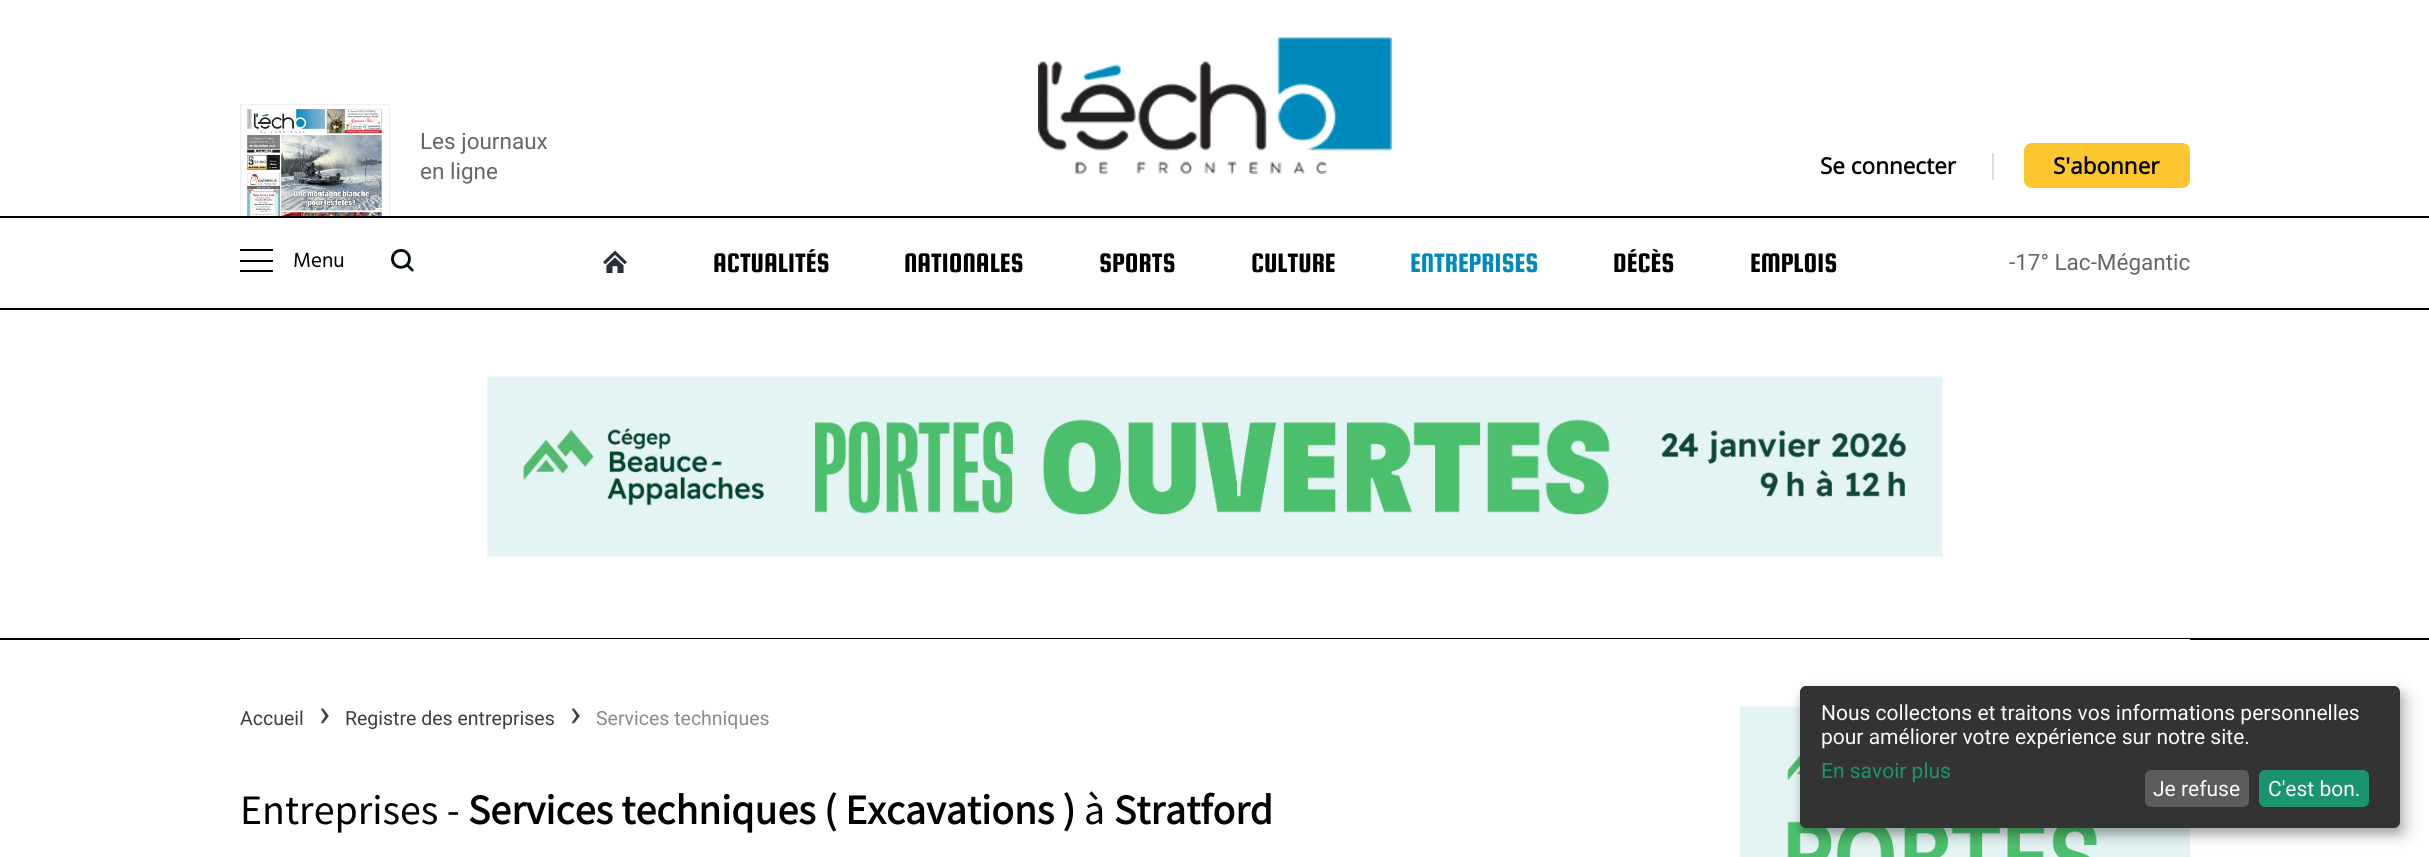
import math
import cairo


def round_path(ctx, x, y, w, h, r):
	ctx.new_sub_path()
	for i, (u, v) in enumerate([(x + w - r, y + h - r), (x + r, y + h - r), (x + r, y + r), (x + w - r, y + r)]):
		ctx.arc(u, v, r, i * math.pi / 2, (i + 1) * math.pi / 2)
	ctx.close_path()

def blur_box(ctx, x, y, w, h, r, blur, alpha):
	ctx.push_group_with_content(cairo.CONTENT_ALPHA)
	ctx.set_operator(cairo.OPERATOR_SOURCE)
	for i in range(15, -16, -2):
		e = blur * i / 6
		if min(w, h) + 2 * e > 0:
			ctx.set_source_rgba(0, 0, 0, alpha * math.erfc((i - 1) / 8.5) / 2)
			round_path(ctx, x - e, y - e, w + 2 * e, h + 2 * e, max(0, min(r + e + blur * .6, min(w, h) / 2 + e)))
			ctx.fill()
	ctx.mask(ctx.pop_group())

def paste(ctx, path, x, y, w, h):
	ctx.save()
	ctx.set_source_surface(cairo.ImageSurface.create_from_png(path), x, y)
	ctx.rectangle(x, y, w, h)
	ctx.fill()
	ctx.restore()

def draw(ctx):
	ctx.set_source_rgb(1, 1, 1)
	ctx.paint()
	ctx.set_source_rgb(0, 0, 0)
	ctx.rectangle(0, 308, 2429, 2)
	ctx.fill()
	ctx.set_source_rgb(0.937, 0.941, 0.953)
	ctx.rectangle(240, 104, 150, 2)
	ctx.rectangle(389, 104, 1, 112)
	ctx.rectangle(240, 104, 2, 112)
	ctx.fill()
	paste(ctx, 'media/1.png', 241, 105, 148, 111)
	ctx.select_font_face('Roboto')
	ctx.set_font_size(22.5)
	ctx.set_source_rgb(0.4, 0.4, 0.4)
	ctx.move_to(420, 149)
	ctx.show_text('Les journaux')
	ctx.move_to(420, 179)
	ctx.show_text('en ligne')
	paste(ctx, 'media/2.png', 1038, 37, 354, 137)
	ctx.select_font_face('Open Sans', cairo.FONT_SLANT_NORMAL, cairo.FONT_WEIGHT_BOLD)
	ctx.set_source_rgb(0, 0, 0)
	ctx.move_to(1820, 174)
	ctx.show_text('Se connecter')
	ctx.set_source_rgb(0.863, 0.863, 0.863)
	ctx.rectangle(1992, 153, 2, 27)
	ctx.fill()
	ctx.set_source_rgb(0.996, 0.776, 0.18)
	round_path(ctx, 2024, 143, 166, 45, 8)
	ctx.fill()
	ctx.set_source_rgb(0, 0, 0)
	ctx.move_to(2053, 174)
	ctx.show_text('S\'abonner')
	ctx.rectangle(240, 249, 33, 2)
	ctx.rectangle(240, 260, 33, 2)
	ctx.rectangle(240, 270, 33, 2)
	ctx.fill()
	ctx.select_font_face('Hind')
	ctx.set_font_size(21)
	ctx.move_to(293, 267)
	ctx.show_text('Menu')
	paste(ctx, 'media/3.png', 391, 249, 23, 23)
	paste(ctx, 'media/4.png', 603, 250, 24, 23)
	ctx.select_font_face('Squada One')
	ctx.set_font_size(28.5)
	for x, y, s in [
		(713, 272, 'ACTUALITÉS'),
		(904, 272, 'NATIONALES'),
		(1099, 272, 'SPORTS'),
		(1251, 272, 'CULTURE'),
	]:
		ctx.move_to(x, y)
		ctx.show_text(s)
	ctx.set_source_rgb(0, 0.541, 0.733)
	ctx.move_to(1410, 272)
	ctx.show_text('ENTREPRISES')
	ctx.set_source_rgb(0, 0, 0)
	ctx.move_to(1613, 272)
	ctx.show_text('DÉCÈS')
	ctx.move_to(1750, 272)
	ctx.show_text('EMPLOIS')
	ctx.select_font_face('Roboto')
	ctx.set_font_size(22.5)
	ctx.set_source_rgb(0.4, 0.4, 0.4)
	ctx.move_to(2009, 270)
	ctx.show_text('-17° Lac-Mégantic')
	ctx.set_source_rgb(0, 0, 0)
	ctx.rectangle(0, 216, 2429, 2)
	ctx.fill()
	paste(ctx, 'media/5.png', 487, 376, 1456, 181)
	ctx.rectangle(0, 638, 2429, 2)
	ctx.fill()
	ctx.set_source_rgb(1, 1, 1)
	ctx.rectangle(240, 639, 1950, 1)
	ctx.fill()
	ctx.set_font_size(19.5)
	ctx.set_source_rgb(0.243, 0.243, 0.243)
	ctx.move_to(240, 725)
	ctx.show_text('Accueil')
	ctx.set_font_size(37.5)
	ctx.move_to(319, 726)
	ctx.show_text('›')
	ctx.set_font_size(19.5)
	ctx.move_to(345, 725)
	ctx.show_text('Registre des entreprises')
	ctx.set_font_size(37.5)
	ctx.move_to(570, 726)
	ctx.show_text('›')
	ctx.set_font_size(19.5)
	ctx.set_source_rgb(0.541, 0.541, 0.541)
	ctx.move_to(596, 725)
	ctx.show_text('Services techniques')
	ctx.select_font_face('Noto Sans HK Thin')
	ctx.set_font_size(37.5)
	ctx.set_source_rgb(0, 0, 0)
	ctx.move_to(240, 824)
	ctx.show_text('Entreprises -')
	ctx.select_font_face('Noto Sans HK', cairo.FONT_SLANT_NORMAL, cairo.FONT_WEIGHT_BOLD)
	ctx.move_to(468, 824)
	ctx.show_text('Services techniques ( Excavations )')
	ctx.select_font_face('Noto Sans HK Thin')
	ctx.move_to(1084, 824)
	ctx.show_text('à')
	ctx.select_font_face('Noto Sans HK', cairo.FONT_SLANT_NORMAL, cairo.FONT_WEIGHT_BOLD)
	ctx.move_to(1114, 824)
	ctx.show_text('Stratford')
	paste(ctx, 'media/6.png', 1740, 706, 450, 151)
	ctx.set_source_rgb(0, 0, 0)
	blur_box(ctx, 1808, 693, 600, 143, 6, 7.5, 0.19)
	blur_box(ctx, 1800, 692, 600, 142, 6, 4.5, 0.2)
	ctx.set_source_rgb(0.2, 0.2, 0.2)
	round_path(ctx, 1800, 686, 600, 142, 6)
	ctx.fill()
	ctx.select_font_face('Roboto')
	ctx.set_font_size(21)
	ctx.set_source_rgb(0.98, 0.98, 0.98)
	ctx.move_to(1821, 720)
	ctx.show_text('Nous collectons et traitons vos informations personnelles')
	ctx.move_to(1821, 744)
	ctx.show_text('pour améliorer votre expérience sur notre site.')
	ctx.set_source_rgb(0.102, 0.576, 0.435)
	ctx.move_to(1821, 778)
	ctx.show_text('En savoir plus')
	ctx.set_source_rgb(0.361, 0.361, 0.361)
	round_path(ctx, 2145, 770, 104, 37, 6)
	ctx.fill()
	ctx.set_source_rgb(0.98, 0.98, 0.98)
	ctx.move_to(2153, 796)
	ctx.show_text('Je refuse')
	ctx.set_source_rgb(0.102, 0.576, 0.435)
	round_path(ctx, 2259, 770, 110, 37, 6)
	ctx.fill()
	ctx.set_source_rgb(0.98, 0.98, 0.98)
	ctx.move_to(2268, 796)
	ctx.show_text('C\'est bon.')


surface = cairo.ImageSurface(cairo.FORMAT_RGB24, 2429, 857)
ctx = cairo.Context(surface)
options = cairo.FontOptions()
options.set_hint_metrics(cairo.HINT_METRICS_OFF)
options.set_hint_style(cairo.HINT_STYLE_NONE)
ctx.set_font_options(options)
ctx.set_miter_limit(4)
draw(ctx)
surface.write_to_png('image.png')
